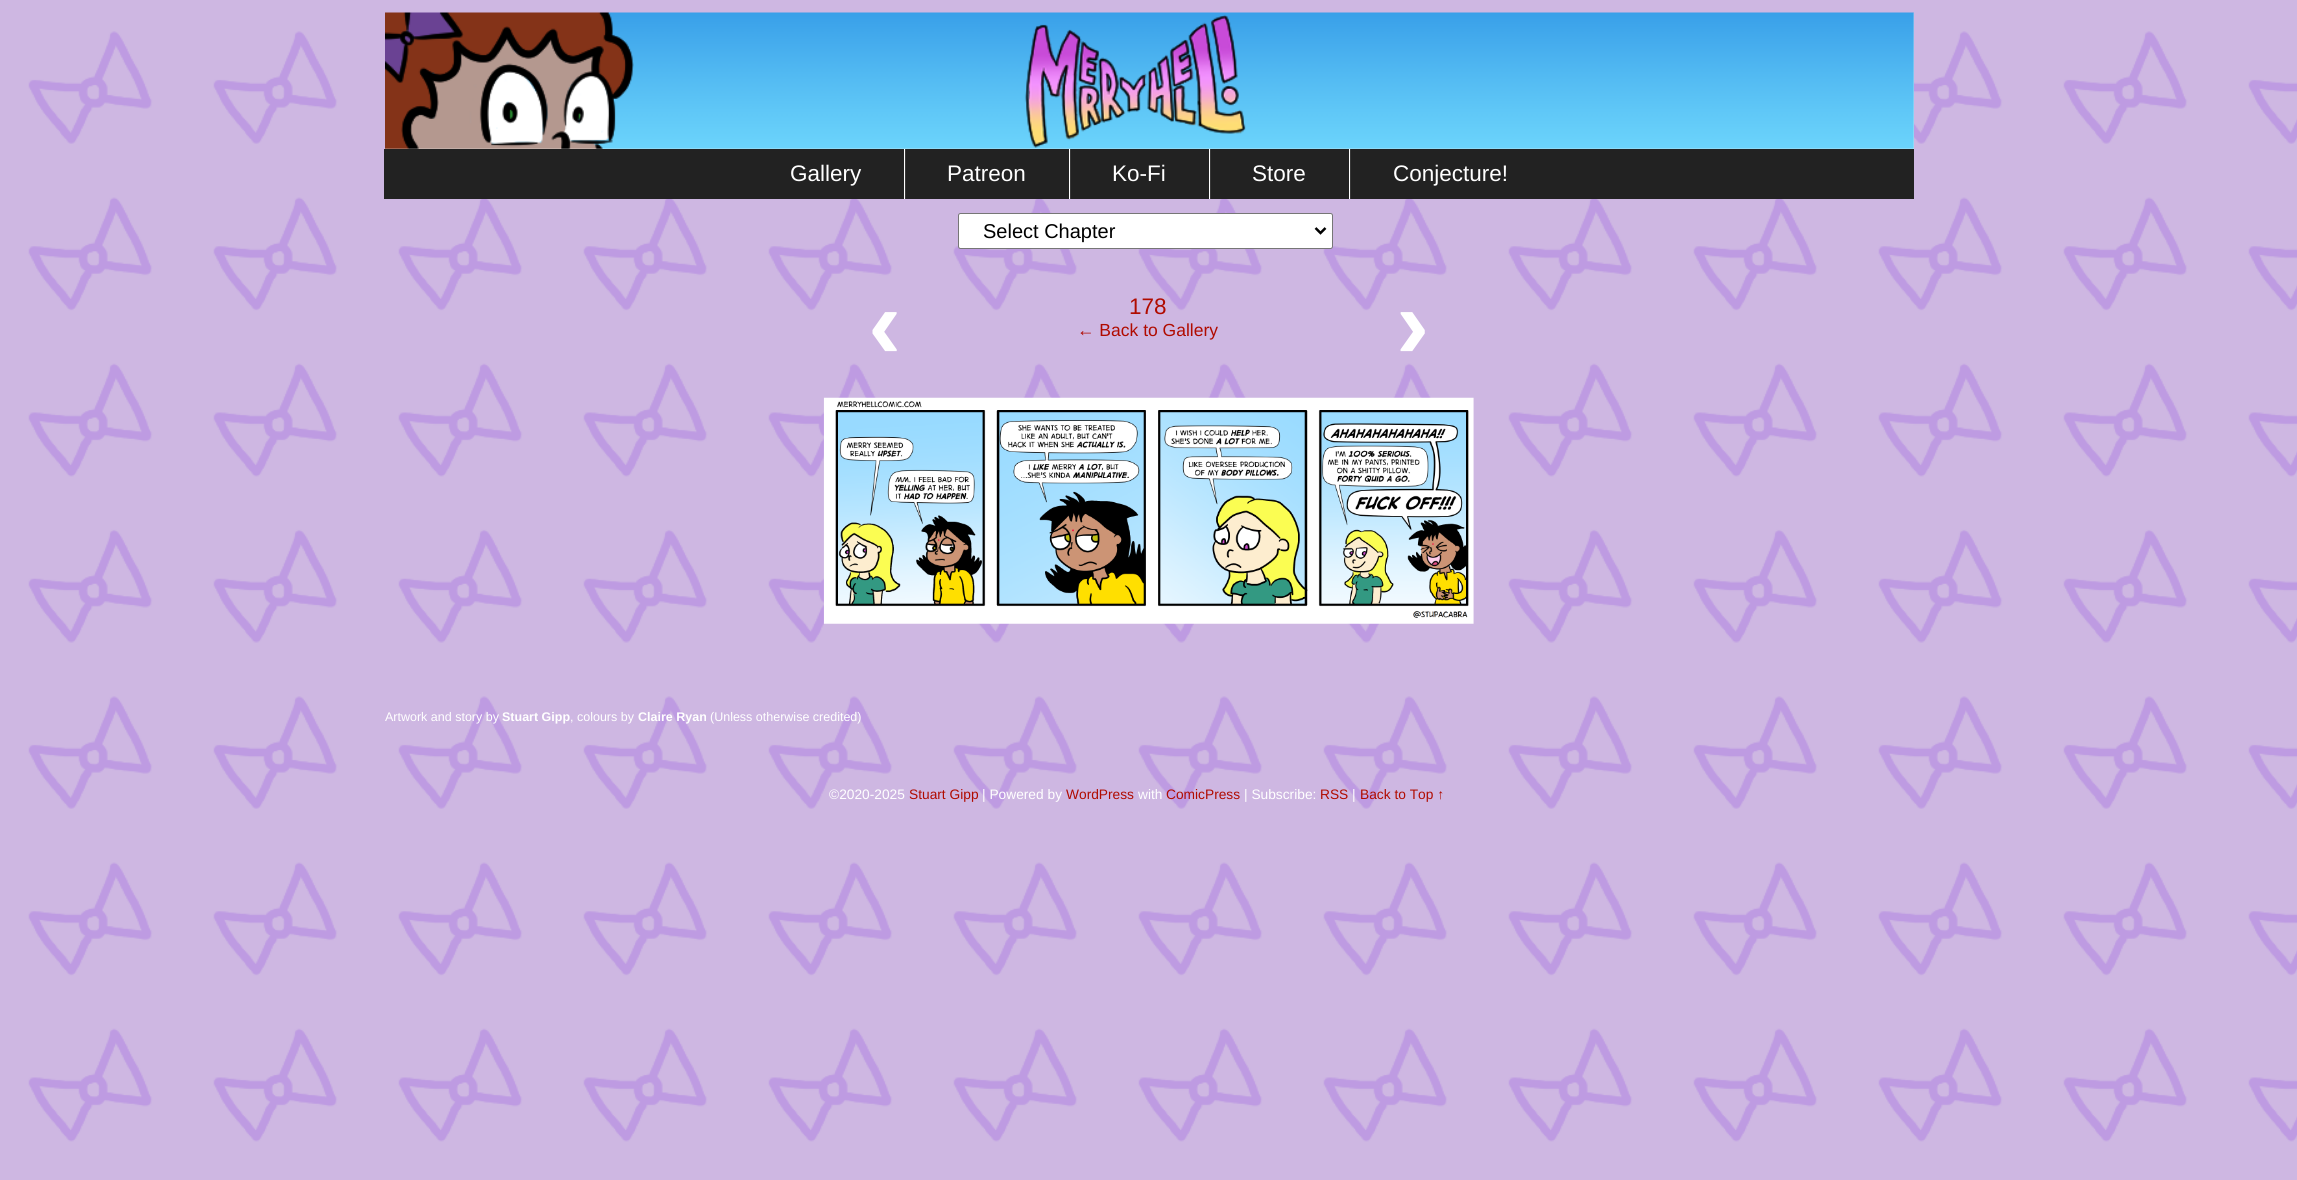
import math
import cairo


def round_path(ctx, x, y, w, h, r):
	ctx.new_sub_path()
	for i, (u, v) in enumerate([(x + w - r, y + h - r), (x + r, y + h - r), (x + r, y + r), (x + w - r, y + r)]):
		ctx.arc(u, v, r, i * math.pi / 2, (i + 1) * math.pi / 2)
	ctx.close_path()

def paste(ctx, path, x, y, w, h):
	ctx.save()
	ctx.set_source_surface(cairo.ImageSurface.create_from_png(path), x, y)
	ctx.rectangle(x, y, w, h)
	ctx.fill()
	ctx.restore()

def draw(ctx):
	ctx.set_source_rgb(1, 1, 1)
	ctx.paint()
	paste(ctx, 'media/1.png', 0, 0, 2297, 1180)
	ctx.set_source_rgb(0.957, 0.957, 0.957)
	ctx.rectangle(385, 13, 1529, 136)
	ctx.fill()
	paste(ctx, 'media/2.png', 385, 12, 1529, 137)
	ctx.set_source_rgb(0.133, 0.133, 0.133)
	ctx.rectangle(384, 149, 1530, 50)
	ctx.fill()
	ctx.select_font_face('Liberation Sans')
	ctx.set_font_size(22.5)
	ctx.set_source_rgb(1, 1, 1)
	ctx.move_to(790, 181)
	ctx.show_text('Gallery')
	ctx.set_source_rgb(0.22, 0.22, 0.22)
	ctx.rectangle(905, 149, 1, 50)
	ctx.fill()
	ctx.set_source_rgb(1, 1, 1)
	ctx.rectangle(904, 149, 1, 50)
	ctx.fill()
	ctx.move_to(947, 181)
	ctx.show_text('Patreon')
	ctx.set_source_rgb(0.22, 0.22, 0.22)
	ctx.rectangle(1070, 149, 1, 50)
	ctx.fill()
	ctx.set_source_rgb(1, 1, 1)
	ctx.rectangle(1069, 149, 1, 50)
	ctx.fill()
	ctx.move_to(1112, 181)
	ctx.show_text('Ko-Fi')
	ctx.set_source_rgb(0.22, 0.22, 0.22)
	ctx.rectangle(1210, 149, 1, 50)
	ctx.fill()
	ctx.set_source_rgb(1, 1, 1)
	ctx.rectangle(1209, 149, 1, 50)
	ctx.fill()
	ctx.move_to(1252, 181)
	ctx.show_text('Store')
	ctx.set_source_rgb(0.22, 0.22, 0.22)
	ctx.rectangle(1350, 149, 1, 50)
	ctx.fill()
	ctx.set_source_rgb(1, 1, 1)
	ctx.rectangle(1349, 149, 1, 50)
	ctx.fill()
	ctx.move_to(1393, 181)
	ctx.show_text('Conjecture!')
	round_path(ctx, 958.5, 213.5, 374, 35, 2)
	ctx.fill_preserve()
	ctx.set_source_rgb(0.463, 0.463, 0.463)
	ctx.set_line_width(1)
	ctx.stroke()
	ctx.new_path()
	ctx.move_to(1315.5, 228)
	ctx.line_to(1320.5, 233)
	ctx.line_to(1325.5, 228)
	ctx.set_source_rgb(0, 0, 0)
	ctx.set_line_width(2.5)
	ctx.stroke()
	ctx.set_font_size(20)
	ctx.move_to(983, 238)
	ctx.show_text('Select Chapter')
	ctx.select_font_face('Liberation Sans', cairo.FONT_SLANT_NORMAL, cairo.FONT_WEIGHT_BOLD)
	ctx.set_font_size(100)
	ctx.set_source_rgb(1, 1, 1)
	ctx.move_to(868, 358)
	ctx.show_text('‹')
	ctx.select_font_face('Liberation Sans')
	ctx.set_font_size(22.5)
	ctx.set_source_rgb(0.69, 0.043, 0)
	ctx.move_to(1129, 314)
	ctx.show_text('178')
	ctx.set_font_size(17.5)
	ctx.move_to(1077, 336)
	ctx.show_text('← Back to Gallery')
	ctx.select_font_face('Liberation Sans', cairo.FONT_SLANT_NORMAL, cairo.FONT_WEIGHT_BOLD)
	ctx.set_font_size(100)
	ctx.set_source_rgb(1, 1, 1)
	ctx.move_to(1396, 358)
	ctx.show_text('›')
	paste(ctx, 'media/3.png', 823, 397, 651, 227)
	ctx.select_font_face('Liberation Sans')
	ctx.set_font_size(12.5)
	ctx.move_to(385, 721)
	ctx.show_text('Artwork and story by')
	ctx.select_font_face('Liberation Sans', cairo.FONT_SLANT_NORMAL, cairo.FONT_WEIGHT_BOLD)
	ctx.move_to(502, 721)
	ctx.show_text('Stuart Gipp')
	ctx.select_font_face('Liberation Sans')
	ctx.move_to(570, 721)
	ctx.show_text(', colours by')
	ctx.select_font_face('Liberation Sans', cairo.FONT_SLANT_NORMAL, cairo.FONT_WEIGHT_BOLD)
	ctx.move_to(638, 721)
	ctx.show_text('Claire Ryan')
	ctx.select_font_face('Liberation Sans')
	ctx.move_to(710, 721)
	ctx.show_text('(Unless otherwise credited)')
	ctx.set_font_size(13.75)
	ctx.move_to(829, 799)
	ctx.show_text('©2020-2025')
	ctx.set_source_rgb(0.69, 0.043, 0)
	ctx.move_to(909, 799)
	ctx.show_text('Stuart Gipp')
	ctx.set_source_rgb(1, 1, 1)
	ctx.move_to(982, 799)
	ctx.show_text('| Powered by')
	ctx.set_source_rgb(0.69, 0.043, 0)
	ctx.move_to(1066, 799)
	ctx.show_text('WordPress')
	ctx.set_source_rgb(1, 1, 1)
	ctx.move_to(1138, 799)
	ctx.show_text('with')
	ctx.set_source_rgb(0.69, 0.043, 0)
	ctx.move_to(1166, 799)
	ctx.show_text('ComicPress')
	ctx.set_source_rgb(1, 1, 1)
	ctx.move_to(1244, 799)
	ctx.show_text('| Subscribe:')
	ctx.set_source_rgb(0.69, 0.043, 0)
	ctx.move_to(1320, 799)
	ctx.show_text('RSS')
	ctx.set_source_rgb(1, 1, 1)
	ctx.move_to(1352, 799)
	ctx.show_text('|')
	ctx.set_source_rgb(0.69, 0.043, 0)
	ctx.move_to(1360, 799)
	ctx.show_text('Back to Top ↑')


surface = cairo.ImageSurface(cairo.FORMAT_RGB24, 2297, 1180)
ctx = cairo.Context(surface)
options = cairo.FontOptions()
options.set_hint_metrics(cairo.HINT_METRICS_OFF)
options.set_hint_style(cairo.HINT_STYLE_NONE)
ctx.set_font_options(options)
ctx.set_miter_limit(4)
draw(ctx)
surface.write_to_png('image.png')
